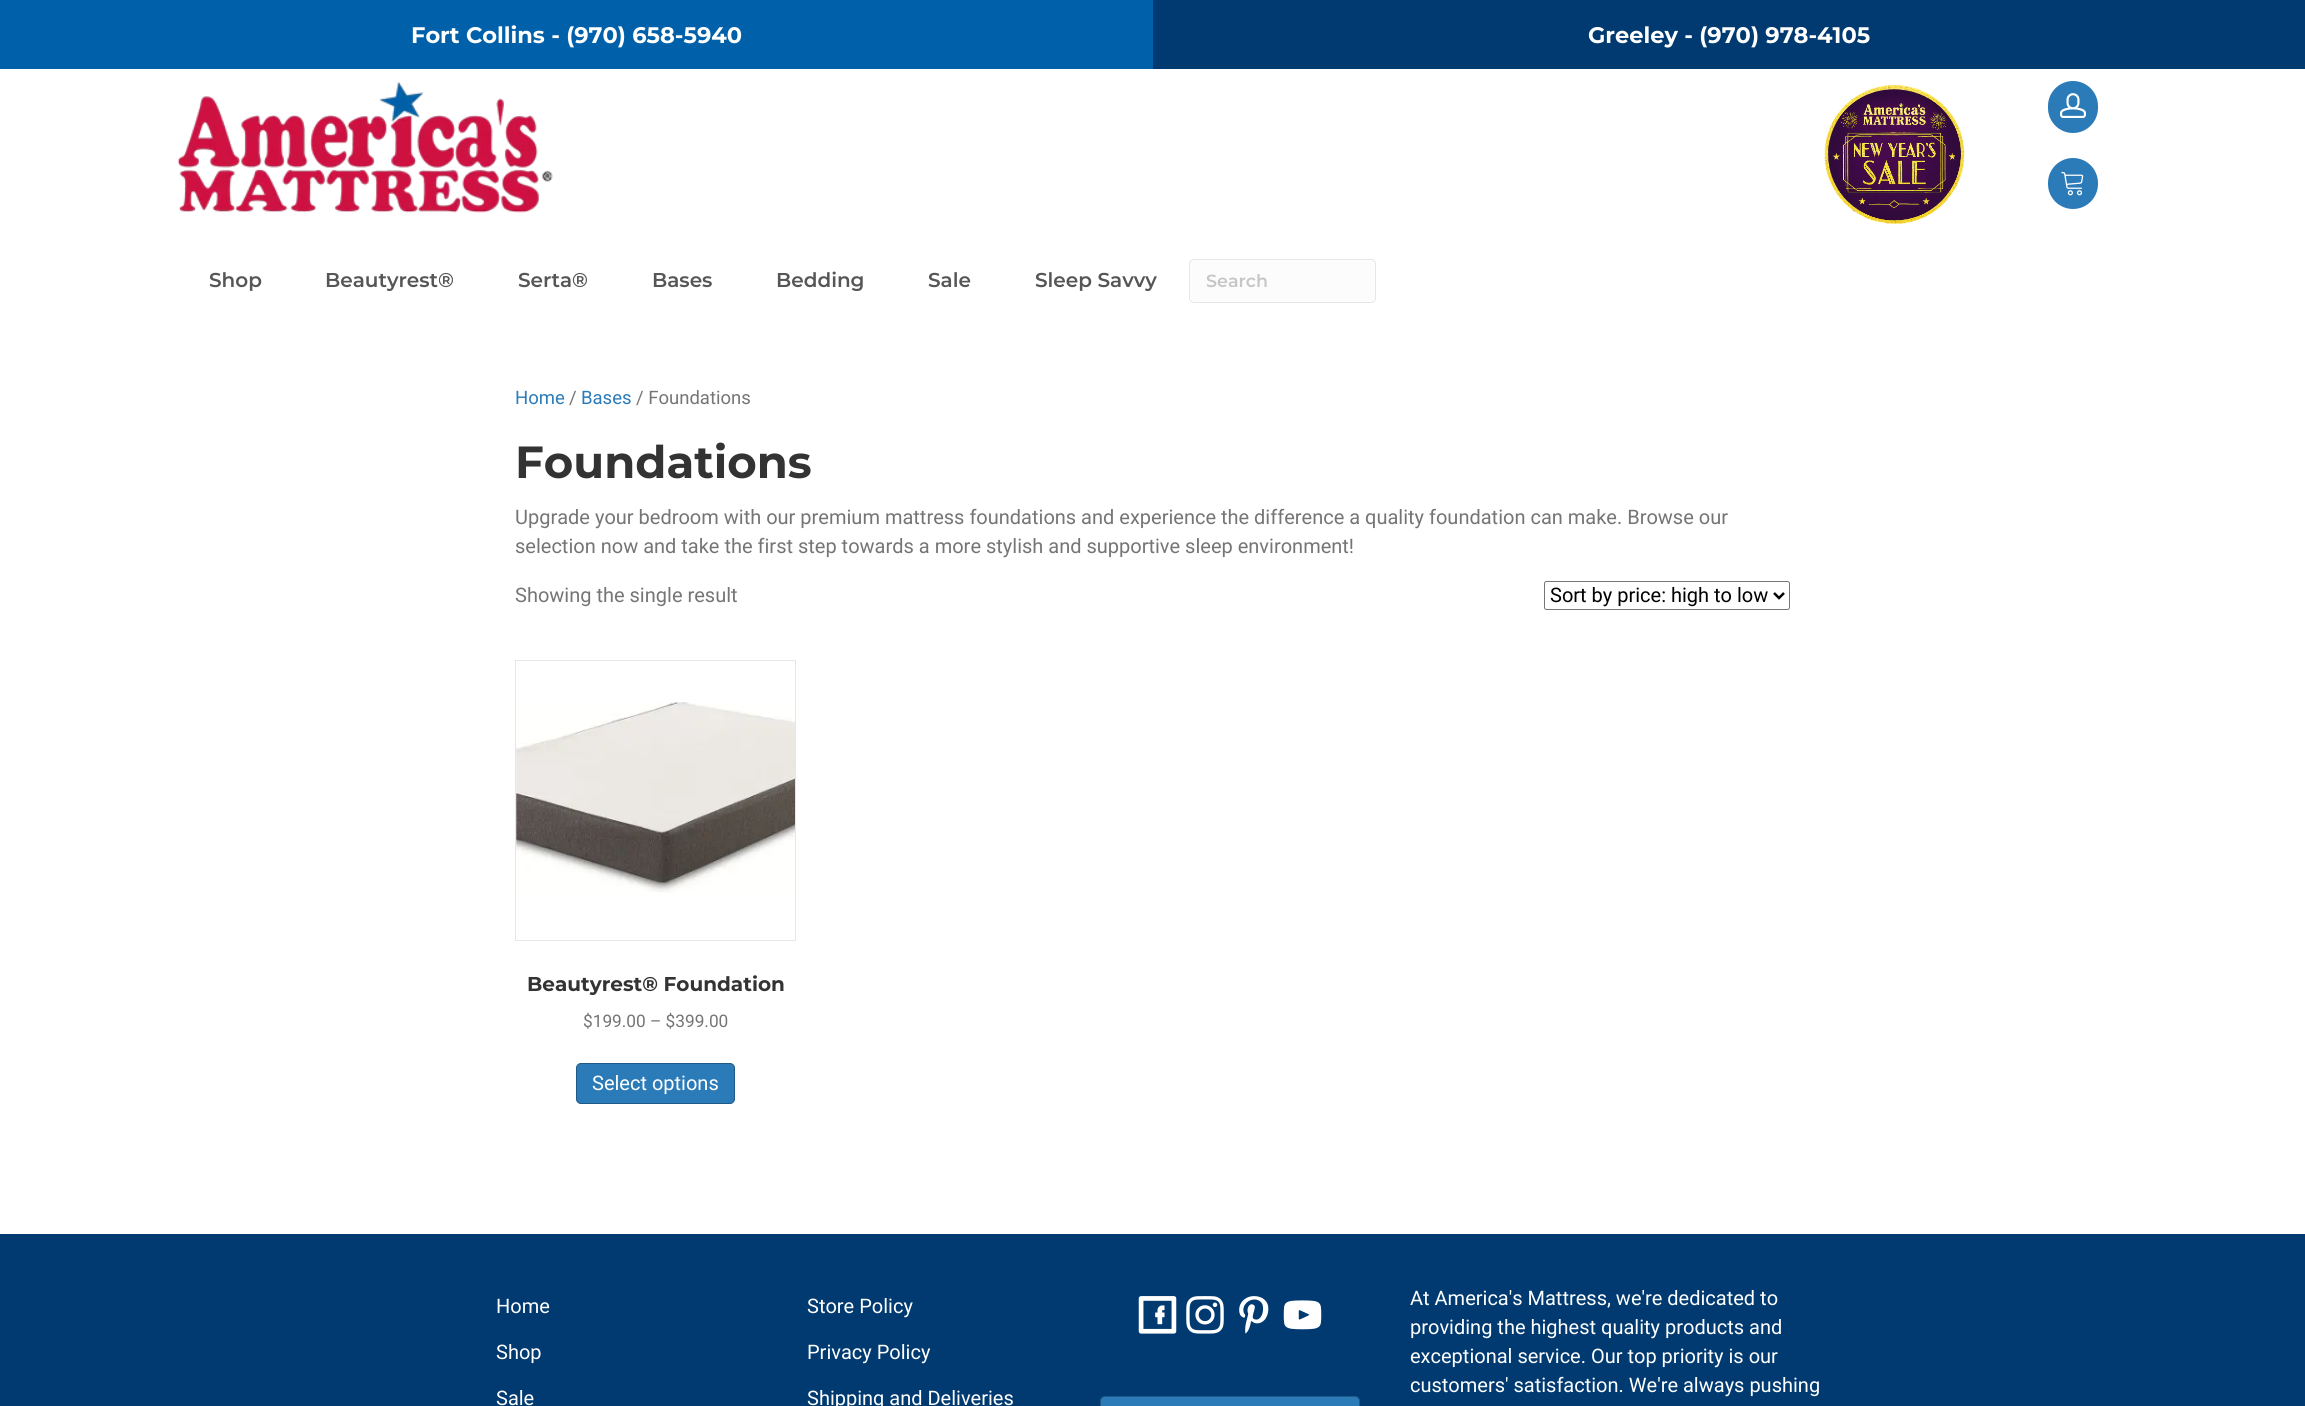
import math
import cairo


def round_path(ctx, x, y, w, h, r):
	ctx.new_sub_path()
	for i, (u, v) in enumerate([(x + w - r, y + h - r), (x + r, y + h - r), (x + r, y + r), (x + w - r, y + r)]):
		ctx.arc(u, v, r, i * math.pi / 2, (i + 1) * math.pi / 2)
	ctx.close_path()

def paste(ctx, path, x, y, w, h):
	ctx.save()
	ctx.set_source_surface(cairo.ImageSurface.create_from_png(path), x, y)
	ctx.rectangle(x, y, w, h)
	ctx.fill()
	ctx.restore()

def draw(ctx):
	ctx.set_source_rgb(1, 1, 1)
	ctx.paint()
	ctx.set_source_rgb(0, 0.376, 0.663)
	ctx.rectangle(0, 0, 1153, 69)
	ctx.fill()
	ctx.select_font_face('Montserrat', cairo.FONT_SLANT_NORMAL, cairo.FONT_WEIGHT_BOLD)
	ctx.set_font_size(22.5)
	ctx.set_source_rgb(1, 1, 1)
	ctx.move_to(411, 43)
	ctx.show_text('Fort Collins - (970) 658-5940')
	ctx.set_source_rgb(0, 0.227, 0.439)
	ctx.rectangle(1153, 0, 1152, 69)
	ctx.fill()
	ctx.set_source_rgb(1, 1, 1)
	ctx.move_to(1588, 43)
	ctx.show_text('Greeley - (970) 978-4105')
	paste(ctx, 'media/1.png', 177, 82, 376, 131)
	paste(ctx, 'media/2.png', 1824, 85, 141, 139)
	ctx.set_source_rgb(0.169, 0.482, 0.725)
	round_path(ctx, 2048, 81, 50, 52, 25)
	ctx.fill()
	paste(ctx, 'media/3.png', 2060, 93, 26, 25)
	round_path(ctx, 2048, 158, 50, 51, 25)
	ctx.fill()
	paste(ctx, 'media/4.png', 2061, 171, 23, 25)
	ctx.select_font_face('Montserrat SemiBold')
	ctx.set_font_size(20)
	ctx.set_source_rgb(0.337, 0.337, 0.337)
	for x, y, s in [
		(209, 287, 'Shop'),
		(325, 287, 'Beautyrest®'),
		(518, 287, 'Serta®'),
		(652, 287, 'Bases'),
		(776, 287, 'Bedding'),
		(928, 287, 'Sale'),
		(1035, 287, 'Sleep Savvy'),
	]:
		ctx.move_to(x, y)
		ctx.show_text(s)
	ctx.set_source_rgb(0.988, 0.988, 0.988)
	round_path(ctx, 1190, 260, 185, 41, 4)
	ctx.fill()
	round_path(ctx, 1189.5, 259.5, 186, 43, 4.5)
	ctx.set_source_rgb(0.902, 0.902, 0.902)
	ctx.set_line_width(1)
	ctx.stroke()
	ctx.set_font_size(17.5)
	ctx.set_source_rgb(0.776, 0.776, 0.776)
	ctx.move_to(1206, 287)
	ctx.show_text('Search')
	ctx.select_font_face('Roboto')
	ctx.set_font_size(18.5)
	ctx.set_source_rgb(0.169, 0.482, 0.725)
	ctx.move_to(515, 404)
	ctx.show_text('Home')
	ctx.set_source_rgb(0.459, 0.459, 0.459)
	ctx.move_to(569, 404)
	ctx.show_text('/')
	ctx.set_source_rgb(0.169, 0.482, 0.725)
	ctx.move_to(581, 404)
	ctx.show_text('Bases')
	ctx.set_source_rgb(0.459, 0.459, 0.459)
	ctx.move_to(636, 404)
	ctx.show_text('/ Foundations')
	ctx.select_font_face('Montserrat', cairo.FONT_SLANT_NORMAL, cairo.FONT_WEIGHT_BOLD)
	ctx.set_font_size(45)
	ctx.set_source_rgb(0.2, 0.2, 0.2)
	ctx.move_to(515, 478)
	ctx.show_text('Foundations')
	ctx.select_font_face('Roboto')
	ctx.set_font_size(20)
	ctx.set_source_rgb(0.459, 0.459, 0.459)
	for x, y, s in [
		(515, 524, 'Upgrade your bedroom with our premium mattress foundations and experience the difference a quality foundation can make. Browse our'),
		(515, 553, 'selection now and take the first step towards a more stylish and supportive sleep environment!'),
		(515, 602, 'Showing the single result'),
	]:
		ctx.move_to(x, y)
		ctx.show_text(s)
	round_path(ctx, 1544.5, 581.5, 245, 28, 2)
	ctx.set_source_rgb(0.463, 0.463, 0.463)
	ctx.stroke()
	ctx.new_path()
	ctx.move_to(1774, 593)
	ctx.line_to(1779, 598)
	ctx.line_to(1784, 593)
	ctx.set_source_rgb(0, 0, 0)
	ctx.set_line_width(2.5)
	ctx.stroke()
	ctx.move_to(1550, 602)
	ctx.show_text('Sort by price: high to low')
	ctx.rectangle(515.5, 660.5, 280, 280)
	ctx.set_source_rgb(0.902, 0.902, 0.902)
	ctx.set_line_width(1)
	ctx.stroke()
	paste(ctx, 'media/5.png', 516, 702, 279, 191)
	ctx.select_font_face('Montserrat', cairo.FONT_SLANT_NORMAL, cairo.FONT_WEIGHT_BOLD)
	ctx.set_source_rgb(0.2, 0.2, 0.2)
	ctx.move_to(527, 991)
	ctx.show_text('Beautyrest® Foundation')
	ctx.select_font_face('Roboto')
	ctx.set_font_size(17.25)
	ctx.set_source_rgb(0.459, 0.459, 0.459)
	ctx.move_to(583, 1027)
	ctx.show_text('$199.00 – $399.00')
	ctx.set_source_rgb(0.169, 0.482, 0.725)
	round_path(ctx, 576.5, 1063.5, 158, 40, 4.5)
	ctx.fill_preserve()
	ctx.set_source_rgb(0.122, 0.353, 0.529)
	ctx.stroke()
	ctx.set_font_size(20)
	ctx.set_source_rgb(1, 1, 1)
	ctx.move_to(592, 1090)
	ctx.show_text('Select options')
	ctx.set_source_rgb(0, 0.227, 0.439)
	ctx.rectangle(0, 1234, 2305, 172)
	ctx.fill()
	ctx.set_source_rgb(1, 1, 1)
	for x, y, s in [
		(496, 1313, 'Home'),
		(496, 1359, 'Shop'),
		(496, 1405, 'Sale'),
		(807, 1313, 'Store Policy'),
		(807, 1359, 'Privacy Policy'),
		(807, 1405, 'Shipping and Deliveries'),
	]:
		ctx.move_to(x, y)
		ctx.show_text(s)
	paste(ctx, 'media/6.png', 1138, 1296, 39, 38)
	paste(ctx, 'media/7.png', 1186, 1296, 38, 38)
	paste(ctx, 'media/8.png', 1239, 1296, 30, 38)
	paste(ctx, 'media/9.png', 1283, 1300, 39, 30)
	ctx.set_source_rgb(0.169, 0.482, 0.725)
	round_path(ctx, 1100.5, 1396.5, 259, 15, 4.5)
	ctx.fill_preserve()
	ctx.set_source_rgb(0.122, 0.353, 0.529)
	ctx.stroke()
	ctx.set_source_rgb(1, 1, 1)
	for x, y, s in [
		(1410, 1305, 'At America\'s Mattress, we\'re dedicated to'),
		(1410, 1334, 'providing the highest quality products and'),
		(1410, 1363, 'exceptional service. Our top priority is our'),
		(1410, 1392, 'customers\' satisfaction. We\'re always pushing'),
	]:
		ctx.move_to(x, y)
		ctx.show_text(s)


surface = cairo.ImageSurface(cairo.FORMAT_RGB24, 2305, 1406)
ctx = cairo.Context(surface)
options = cairo.FontOptions()
options.set_hint_metrics(cairo.HINT_METRICS_OFF)
options.set_hint_style(cairo.HINT_STYLE_NONE)
ctx.set_font_options(options)
ctx.set_miter_limit(4)
draw(ctx)
surface.write_to_png('image.png')
